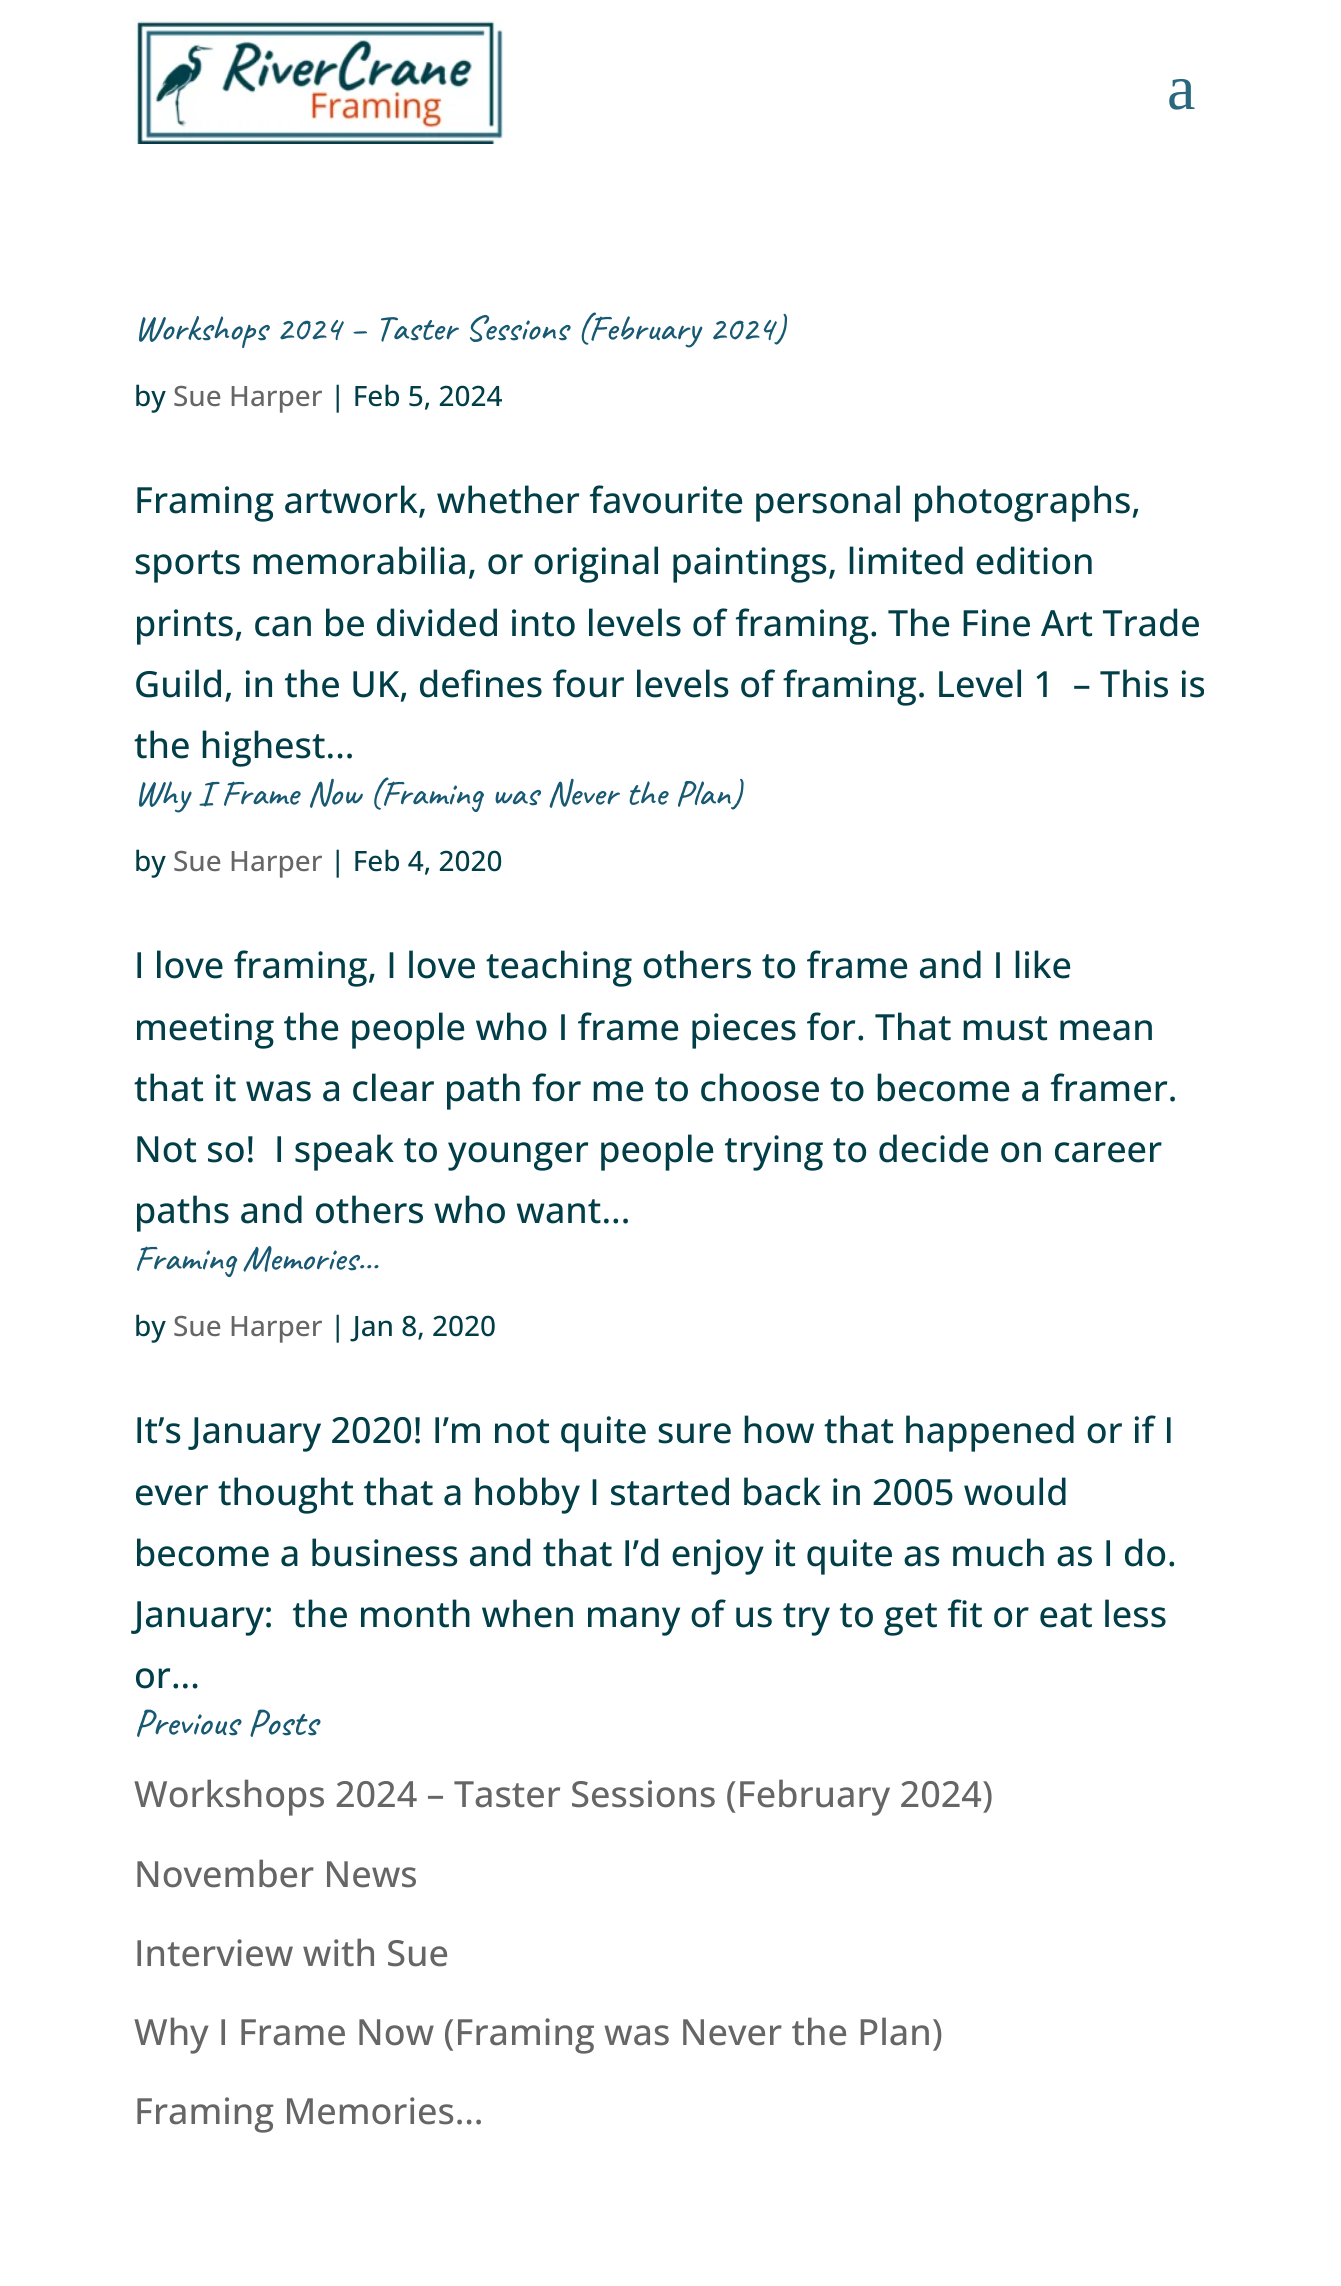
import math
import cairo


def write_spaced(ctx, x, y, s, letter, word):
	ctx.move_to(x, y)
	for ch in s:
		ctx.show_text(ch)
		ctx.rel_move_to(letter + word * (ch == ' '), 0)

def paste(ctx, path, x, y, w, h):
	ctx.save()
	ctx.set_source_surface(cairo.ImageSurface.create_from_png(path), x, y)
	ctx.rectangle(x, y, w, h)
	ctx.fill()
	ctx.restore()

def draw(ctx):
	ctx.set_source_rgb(1, 1, 1)
	ctx.paint()
	paste(ctx, 'media/1.png', 134, 18, 370, 126)
	ctx.select_font_face('Liberation Serif')
	ctx.set_font_size(64)
	ctx.set_source_rgb(0.165, 0.408, 0.49)
	ctx.move_to(1167, 109)
	ctx.show_text('a')
	ctx.select_font_face('Caveat Medium')
	ctx.set_font_size(36)
	ctx.set_source_rgb(0.09, 0.345, 0.451)
	write_spaced(ctx, 134, 340, 'Workshops 2024 – Taster Sessions (February 2024)', 0, 0.25)
	ctx.select_font_face('Open Sans Medium')
	ctx.set_font_size(28)
	ctx.set_source_rgb(0.004, 0.243, 0.282)
	ctx.move_to(134, 406)
	ctx.show_text('by')
	ctx.set_source_rgb(0.4, 0.4, 0.4)
	ctx.move_to(173, 406)
	ctx.show_text('Sue Harper')
	ctx.set_source_rgb(0.004, 0.243, 0.282)
	ctx.move_to(330, 406)
	ctx.show_text('| Feb 5, 2024')
	ctx.set_font_size(36)
	for x, y, s in [
		(134, 513, 'Framing artwork, whether favourite personal photographs,'),
		(134, 574, 'sports memorabilia, or original paintings, limited edition'),
		(134, 636, 'prints, can be divided into levels of framing. The Fine Art Trade'),
		(134, 697, 'Guild, in the UK, defines four levels of framing. Level 1  – This is'),
		(134, 758, 'the highest...'),
	]:
		ctx.move_to(x, y)
		ctx.show_text(s)
	ctx.select_font_face('Caveat Medium')
	ctx.set_source_rgb(0.09, 0.345, 0.451)
	ctx.move_to(134, 805)
	ctx.show_text('Why I Frame Now')
	ctx.move_to(369, 805)
	ctx.show_text('(Framing was Never the Plan)')
	ctx.select_font_face('Open Sans Medium')
	ctx.set_font_size(28)
	ctx.set_source_rgb(0.004, 0.243, 0.282)
	ctx.move_to(134, 871)
	ctx.show_text('by')
	ctx.set_source_rgb(0.4, 0.4, 0.4)
	ctx.move_to(173, 871)
	ctx.show_text('Sue Harper')
	ctx.set_source_rgb(0.004, 0.243, 0.282)
	ctx.move_to(330, 871)
	ctx.show_text('| Feb 4, 2020')
	ctx.set_font_size(36)
	for x, y, s in [
		(134, 978, 'I love framing, I love teaching others to frame and I like'),
		(134, 1040, 'meeting the people who I frame pieces for. That must mean'),
		(134, 1101, 'that it was a clear path for me to choose to become a framer.'),
		(134, 1162, 'Not so!  I speak to younger people trying to decide on career'),
		(134, 1223, 'paths and others who want...'),
	]:
		ctx.move_to(x, y)
		ctx.show_text(s)
	ctx.select_font_face('Caveat Medium')
	ctx.set_source_rgb(0.09, 0.345, 0.451)
	write_spaced(ctx, 134, 1270, 'Framing Memories…', 0, -2)
	ctx.select_font_face('Open Sans Medium')
	ctx.set_font_size(28)
	ctx.set_source_rgb(0.004, 0.243, 0.282)
	ctx.move_to(134, 1336)
	ctx.show_text('by')
	ctx.set_source_rgb(0.4, 0.4, 0.4)
	ctx.move_to(173, 1336)
	ctx.show_text('Sue Harper')
	ctx.set_source_rgb(0.004, 0.243, 0.282)
	ctx.move_to(330, 1336)
	ctx.show_text('| Jan 8, 2020')
	ctx.set_font_size(36)
	for x, y, s in [
		(134, 1443, 'It’s January 2020! I’m not quite sure how that happened or if I'),
		(134, 1505, 'ever thought that a hobby I started back in 2005 would'),
		(134, 1566, 'become a business and that I’d enjoy it quite as much as I do.'),
		(134, 1627, 'January:  the month when many of us try to get fit or eat less'),
		(134, 1688, 'or...'),
	]:
		ctx.move_to(x, y)
		ctx.show_text(s)
	ctx.select_font_face('Caveat Medium')
	ctx.set_font_size(38)
	ctx.set_source_rgb(0.09, 0.345, 0.451)
	ctx.move_to(134, 1735)
	ctx.show_text('Previous Posts')
	ctx.select_font_face('Open Sans Medium')
	ctx.set_font_size(36)
	ctx.set_source_rgb(0.4, 0.4, 0.4)
	for x, y, s in [
		(134, 1807, 'Workshops 2024 – Taster Sessions (February 2024)'),
		(134, 1887, 'November News'),
		(134, 1966, 'Interview with Sue'),
		(134, 2045, 'Why I Frame Now (Framing was Never the Plan)'),
		(134, 2124, 'Framing Memories…'),
	]:
		ctx.move_to(x, y)
		ctx.show_text(s)


surface = cairo.ImageSurface(cairo.FORMAT_RGB24, 1341, 2286)
ctx = cairo.Context(surface)
options = cairo.FontOptions()
options.set_hint_metrics(cairo.HINT_METRICS_OFF)
options.set_hint_style(cairo.HINT_STYLE_NONE)
ctx.set_font_options(options)
ctx.set_miter_limit(4)
draw(ctx)
surface.write_to_png('image.png')
